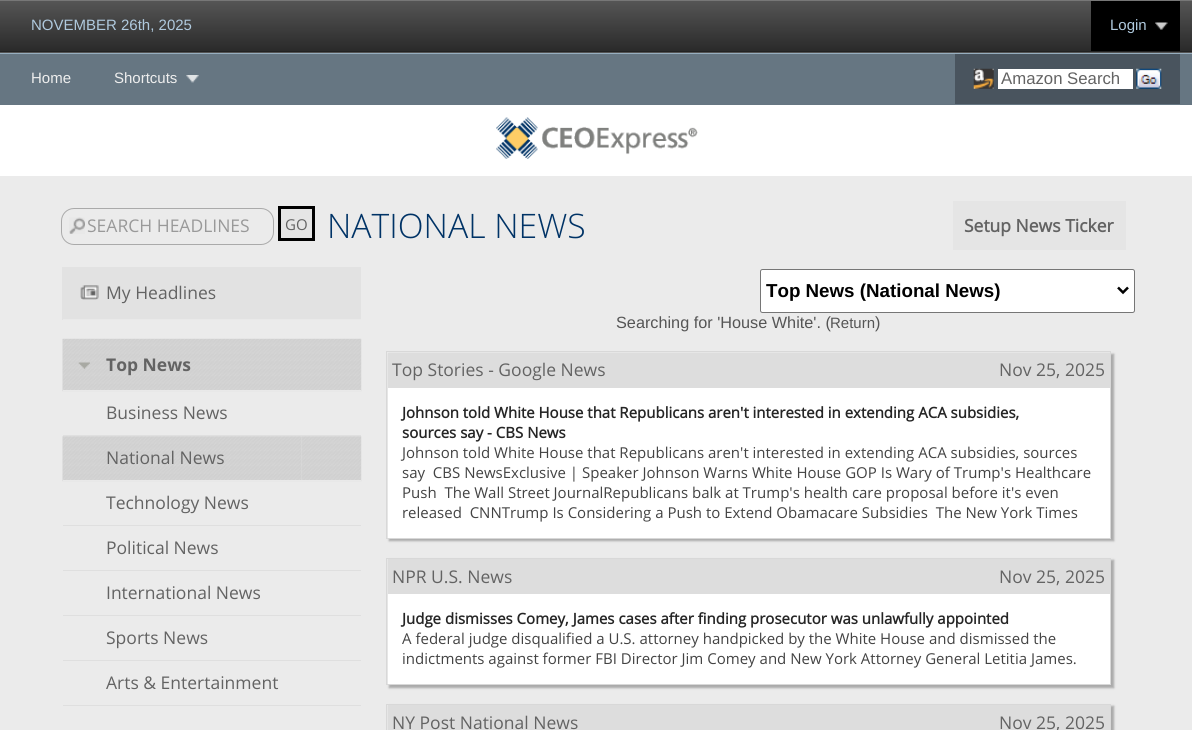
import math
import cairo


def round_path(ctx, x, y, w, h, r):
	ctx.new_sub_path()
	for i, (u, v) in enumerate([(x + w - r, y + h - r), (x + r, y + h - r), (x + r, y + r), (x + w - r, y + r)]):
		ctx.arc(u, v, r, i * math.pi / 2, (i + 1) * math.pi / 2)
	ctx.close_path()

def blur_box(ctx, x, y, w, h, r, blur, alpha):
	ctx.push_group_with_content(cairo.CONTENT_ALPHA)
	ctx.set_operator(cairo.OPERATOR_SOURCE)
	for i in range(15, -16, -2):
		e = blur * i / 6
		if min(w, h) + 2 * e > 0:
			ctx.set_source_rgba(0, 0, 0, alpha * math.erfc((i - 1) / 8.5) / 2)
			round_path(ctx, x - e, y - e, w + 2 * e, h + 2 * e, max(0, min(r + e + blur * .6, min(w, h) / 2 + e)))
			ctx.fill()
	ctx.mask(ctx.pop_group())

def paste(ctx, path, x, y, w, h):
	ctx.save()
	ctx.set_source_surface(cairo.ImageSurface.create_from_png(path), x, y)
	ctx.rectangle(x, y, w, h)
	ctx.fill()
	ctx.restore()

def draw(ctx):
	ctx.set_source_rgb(1, 1, 1)
	ctx.paint()
	gradient = cairo.LinearGradient(596, 1.2, 596, 51)
	gradient.add_color_stop_rgba(0, 0.333, 0.333, 0.333, 1)
	gradient.add_color_stop_rgba(1, 0.165, 0.165, 0.165, 1)
	ctx.set_source(gradient)
	ctx.rectangle(0, 1, 1192, 50)
	ctx.fill()
	gradient = cairo.LinearGradient(596, 51, 596, 101)
	gradient.add_color_stop_rgba(0, 0.333, 0.333, 0.333, 1)
	gradient.add_color_stop_rgba(1, 0.165, 0.165, 0.165, 1)
	ctx.set_source(gradient)
	ctx.rectangle(0, 52, 1192, 1)
	ctx.fill()
	ctx.set_source_rgb(0.467, 0.467, 0.467)
	ctx.rectangle(0, 0, 1192, 1)
	ctx.fill()
	ctx.set_source_rgb(0.133, 0.133, 0.133)
	ctx.rectangle(0, 51, 1192, 1)
	ctx.fill()
	ctx.select_font_face('Liberation Sans')
	ctx.set_font_size(15)
	ctx.set_source_rgb(0.69, 0.792, 0.871)
	ctx.move_to(31, 30)
	ctx.show_text('NOVEMBER 26th, 2025')
	ctx.set_source_rgb(0, 0, 0)
	ctx.rectangle(1091, 1, 89, 50)
	ctx.fill()
	paste(ctx, 'media/1.png', 1155, 22, 13, 8)
	ctx.set_source_rgb(0.69, 0.792, 0.871)
	ctx.move_to(1110, 30)
	ctx.show_text('Login')
	ctx.set_source_rgb(0.4, 0.463, 0.51)
	ctx.rectangle(0, 54, 1192, 51)
	ctx.fill()
	ctx.set_source_rgb(0.592, 0.682, 0.749)
	ctx.rectangle(0, 53, 1192, 1)
	ctx.fill()
	ctx.set_source_rgb(0.933, 0.933, 0.933)
	ctx.move_to(31, 83)
	ctx.show_text('Home')
	paste(ctx, 'media/2.png', 186, 75, 13, 8)
	ctx.move_to(114, 83)
	ctx.show_text('Shortcuts')
	ctx.set_source_rgb(0.286, 0.329, 0.369)
	ctx.rectangle(955, 54, 225, 50)
	ctx.fill()
	paste(ctx, 'media/3.png', 973, 68, 21, 21)
	ctx.set_source_rgb(1, 1, 1)
	ctx.rectangle(998, 69, 135, 20)
	ctx.fill()
	ctx.set_font_size(16.75)
	ctx.set_source_rgb(0.388, 0.388, 0.388)
	ctx.move_to(1001, 84)
	ctx.show_text('Amazon Search')
	paste(ctx, 'media/4.png', 1136, 68, 26, 21)
	paste(ctx, 'media/5.png', 496, 117, 202, 42)
	ctx.set_source_rgb(0.918, 0.918, 0.918)
	ctx.rectangle(0, 176, 1192, 554)
	ctx.fill()
	paste(ctx, 'media/6.png', 69, 217, 16, 17)
	round_path(ctx, 61.5, 208.5, 212, 36, 12.5)
	ctx.set_source_rgb(0.667, 0.667, 0.667)
	ctx.set_line_width(1)
	ctx.stroke()
	ctx.select_font_face('Open Sans')
	ctx.set_font_size(17.5)
	ctx.set_source_rgb(0.6, 0.6, 0.6)
	ctx.move_to(87, 232)
	ctx.show_text('SEARCH HEADLINES')
	ctx.set_source_rgb(0.898, 0.898, 0.898)
	ctx.rectangle(279.5, 207.5, 34, 32)
	ctx.fill_preserve()
	ctx.set_source_rgb(0, 0, 0)
	ctx.set_line_width(3)
	ctx.stroke()
	ctx.set_font_size(15)
	ctx.set_source_rgb(0.388, 0.388, 0.388)
	ctx.move_to(285, 230)
	ctx.show_text('GO')
	ctx.select_font_face('Open Sans Light')
	ctx.set_font_size(33.75)
	ctx.set_source_rgb(0, 0.2, 0.4)
	ctx.move_to(327, 238)
	ctx.show_text('NATIONAL NEWS')
	ctx.set_source_rgb(0.898, 0.898, 0.898)
	ctx.rectangle(953, 201, 173, 49)
	ctx.fill()
	ctx.select_font_face('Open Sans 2', cairo.FONT_SLANT_NORMAL, cairo.FONT_WEIGHT_BOLD)
	ctx.set_font_size(17.5)
	ctx.set_source_rgb(0.388, 0.388, 0.388)
	ctx.move_to(964, 232)
	ctx.show_text('Setup News Ticker')
	ctx.set_source_rgb(0.886, 0.886, 0.886)
	ctx.rectangle(62, 267, 299, 53)
	ctx.fill()
	ctx.set_source_rgb(0.914, 0.914, 0.914)
	ctx.rectangle(63, 319, 298, 1)
	ctx.fill()
	paste(ctx, 'media/7.png', 80, 285, 19, 15)
	ctx.select_font_face('Open Sans')
	ctx.set_source_rgb(0.388, 0.388, 0.388)
	ctx.move_to(106, 299)
	ctx.show_text('My Headlines')
	paste(ctx, 'media/8.png', 62, 338, 300, 54)
	ctx.set_source_rgb(0.914, 0.914, 0.914)
	ctx.rectangle(63, 390, 298, 1)
	ctx.fill()
	paste(ctx, 'media/9.png', 78, 362, 12, 7)
	ctx.select_font_face('Open Sans', cairo.FONT_SLANT_NORMAL, cairo.FONT_WEIGHT_BOLD)
	ctx.set_source_rgb(0.388, 0.388, 0.388)
	ctx.move_to(106, 371)
	ctx.show_text('Top News')
	ctx.set_source_rgb(0.91, 0.91, 0.91)
	ctx.rectangle(63, 391, 298, 1)
	ctx.fill()
	ctx.set_source_rgb(0.875, 0.875, 0.875)
	ctx.rectangle(63, 435, 298, 1)
	ctx.fill()
	ctx.select_font_face('Open Sans')
	ctx.set_source_rgb(0.388, 0.388, 0.388)
	ctx.move_to(106, 419)
	ctx.show_text('Business News')
	paste(ctx, 'media/10.png', 62, 436, 240, 46)
	ctx.set_source_rgb(0.914, 0.914, 0.914)
	ctx.rectangle(63, 480, 238, 1)
	ctx.fill()
	ctx.set_source_rgb(0.388, 0.388, 0.388)
	ctx.move_to(106, 464)
	ctx.show_text('National News')
	paste(ctx, 'media/11.png', 301, 436, 61, 46)
	ctx.set_source_rgb(0.914, 0.914, 0.914)
	ctx.rectangle(301, 480, 60, 1)
	ctx.fill()
	ctx.set_source_rgb(0.91, 0.91, 0.91)
	ctx.rectangle(63, 481, 298, 1)
	ctx.fill()
	ctx.set_source_rgb(0.875, 0.875, 0.875)
	ctx.rectangle(63, 525, 298, 1)
	ctx.fill()
	ctx.set_source_rgb(0.388, 0.388, 0.388)
	ctx.move_to(106, 509)
	ctx.show_text('Technology News')
	ctx.set_source_rgb(0.875, 0.875, 0.875)
	ctx.rectangle(63, 570, 298, 1)
	ctx.fill()
	ctx.set_source_rgb(0.388, 0.388, 0.388)
	ctx.move_to(106, 554)
	ctx.show_text('Political News')
	ctx.set_source_rgb(0.875, 0.875, 0.875)
	ctx.rectangle(63, 615, 298, 1)
	ctx.fill()
	ctx.set_source_rgb(0.388, 0.388, 0.388)
	ctx.move_to(106, 599)
	ctx.show_text('International News')
	ctx.set_source_rgb(0.875, 0.875, 0.875)
	ctx.rectangle(63, 660, 298, 1)
	ctx.fill()
	ctx.set_source_rgb(0.388, 0.388, 0.388)
	ctx.move_to(106, 644)
	ctx.show_text('Sports News')
	ctx.set_source_rgb(0.875, 0.875, 0.875)
	ctx.rectangle(63, 705, 298, 1)
	ctx.fill()
	ctx.set_source_rgb(0.388, 0.388, 0.388)
	ctx.move_to(106, 689)
	ctx.show_text('Arts & Entertainment')
	ctx.set_source_rgb(1, 1, 1)
	round_path(ctx, 760.5, 269.5, 374, 43, 2)
	ctx.fill_preserve()
	ctx.set_source_rgb(0.463, 0.463, 0.463)
	ctx.set_line_width(1)
	ctx.stroke()
	ctx.new_path()
	ctx.move_to(1118, 287.5)
	ctx.line_to(1123, 292.5)
	ctx.line_to(1128, 287.5)
	ctx.set_source_rgb(0, 0, 0)
	ctx.set_line_width(2.5)
	ctx.stroke()
	ctx.select_font_face('Liberation Sans', cairo.FONT_SLANT_NORMAL, cairo.FONT_WEIGHT_BOLD)
	ctx.set_font_size(18.75)
	ctx.move_to(766, 297)
	ctx.show_text('Top News (National News)')
	ctx.select_font_face('Liberation Sans')
	ctx.set_font_size(16.25)
	ctx.set_source_rgb(0.333, 0.333, 0.333)
	ctx.move_to(616, 328)
	ctx.show_text('Searching for \'House White\'. (')
	ctx.set_font_size(15)
	ctx.move_to(830, 328)
	ctx.show_text('Return')
	ctx.set_font_size(16.25)
	ctx.move_to(875, 328)
	ctx.show_text(')')
	ctx.set_source_rgb(0.667, 0.667, 0.667)
	blur_box(ctx, 389, 354, 725, 187, 0, 1, 1)
	ctx.rectangle(386.5, 351.5, 724, 187)
	ctx.set_source_rgb(0.847, 0.847, 0.847)
	ctx.set_line_width(1)
	ctx.stroke()
	ctx.set_source_rgb(0.867, 0.867, 0.867)
	ctx.rectangle(388, 353, 722, 35)
	ctx.fill()
	ctx.select_font_face('Open Sans')
	ctx.set_font_size(17.5)
	ctx.set_source_rgb(0.388, 0.388, 0.388)
	ctx.move_to(392, 376)
	ctx.show_text('Top Stories - Google News')
	ctx.move_to(999, 376)
	ctx.show_text('Nov 25, 2025')
	ctx.set_source_rgb(1, 1, 1)
	ctx.rectangle(388, 388, 722, 150)
	ctx.fill()
	ctx.select_font_face('Open Sans 2', cairo.FONT_SLANT_NORMAL, cairo.FONT_WEIGHT_BOLD)
	ctx.set_font_size(15)
	ctx.set_source_rgb(0.145, 0.145, 0.145)
	ctx.move_to(402, 418)
	ctx.show_text('Johnson told White House that Republicans aren\'t interested in extending ACA subsidies,')
	ctx.move_to(402, 438)
	ctx.show_text('sources say - CBS News')
	ctx.select_font_face('Open Sans')
	ctx.set_source_rgb(0.263, 0.263, 0.263)
	for x, y, s in [
		(402, 458, 'Johnson told White House that Republicans aren\'t interested in extending ACA subsidies, sources'),
		(402, 478, 'say  CBS NewsExclusive | Speaker Johnson Warns White House GOP Is Wary of Trump\'s Healthcare'),
		(402, 498, 'Push  The Wall Street JournalRepublicans balk at Trump\'s health care proposal before it\'s even'),
		(402, 518, 'released  CNNTrump Is Considering a Push to Extend Obamacare Subsidies  The New York Times'),
	]:
		ctx.move_to(x, y)
		ctx.show_text(s)
	ctx.set_source_rgb(0.667, 0.667, 0.667)
	blur_box(ctx, 389, 560, 725, 128, 0, 1, 1)
	ctx.rectangle(386.5, 558.5, 724, 126)
	ctx.set_source_rgb(0.847, 0.847, 0.847)
	ctx.stroke()
	ctx.set_source_rgb(0.867, 0.867, 0.867)
	ctx.rectangle(388, 559, 722, 35)
	ctx.fill()
	ctx.set_font_size(17.5)
	ctx.set_source_rgb(0.388, 0.388, 0.388)
	ctx.move_to(392, 583)
	ctx.show_text('NPR U.S. News')
	ctx.move_to(999, 583)
	ctx.show_text('Nov 25, 2025')
	ctx.set_source_rgb(1, 1, 1)
	ctx.rectangle(388, 594, 722, 90)
	ctx.fill()
	ctx.select_font_face('Open Sans 2', cairo.FONT_SLANT_NORMAL, cairo.FONT_WEIGHT_BOLD)
	ctx.set_font_size(15)
	ctx.set_source_rgb(0.145, 0.145, 0.145)
	ctx.move_to(402, 624)
	ctx.show_text('Judge dismisses Comey, James cases after finding prosecutor was unlawfully appointed')
	ctx.select_font_face('Open Sans')
	ctx.set_source_rgb(0.263, 0.263, 0.263)
	ctx.move_to(402, 644)
	ctx.show_text('A federal judge disqualified a U.S. attorney handpicked by the White House and dismissed the')
	ctx.move_to(402, 664)
	ctx.show_text('indictments against former FBI Director Jim Comey and New York Attorney General Letitia James.')
	ctx.set_source_rgb(0.667, 0.667, 0.667)
	blur_box(ctx, 389, 706, 725, 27, 0, 1, 1)
	ctx.rectangle(386.5, 704.5, 724, 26)
	ctx.set_source_rgb(0.847, 0.847, 0.847)
	ctx.stroke()
	ctx.set_source_rgb(0.867, 0.867, 0.867)
	ctx.rectangle(388, 705, 722, 25)
	ctx.fill()
	ctx.set_font_size(17.5)
	ctx.set_source_rgb(0.388, 0.388, 0.388)
	ctx.move_to(392, 729)
	ctx.show_text('NY Post National News')
	ctx.move_to(999, 729)
	ctx.show_text('Nov 25, 2025')


surface = cairo.ImageSurface(cairo.FORMAT_RGB24, 1192, 730)
ctx = cairo.Context(surface)
options = cairo.FontOptions()
options.set_hint_metrics(cairo.HINT_METRICS_OFF)
options.set_hint_style(cairo.HINT_STYLE_NONE)
ctx.set_font_options(options)
ctx.set_miter_limit(4)
draw(ctx)
surface.write_to_png('image.png')
